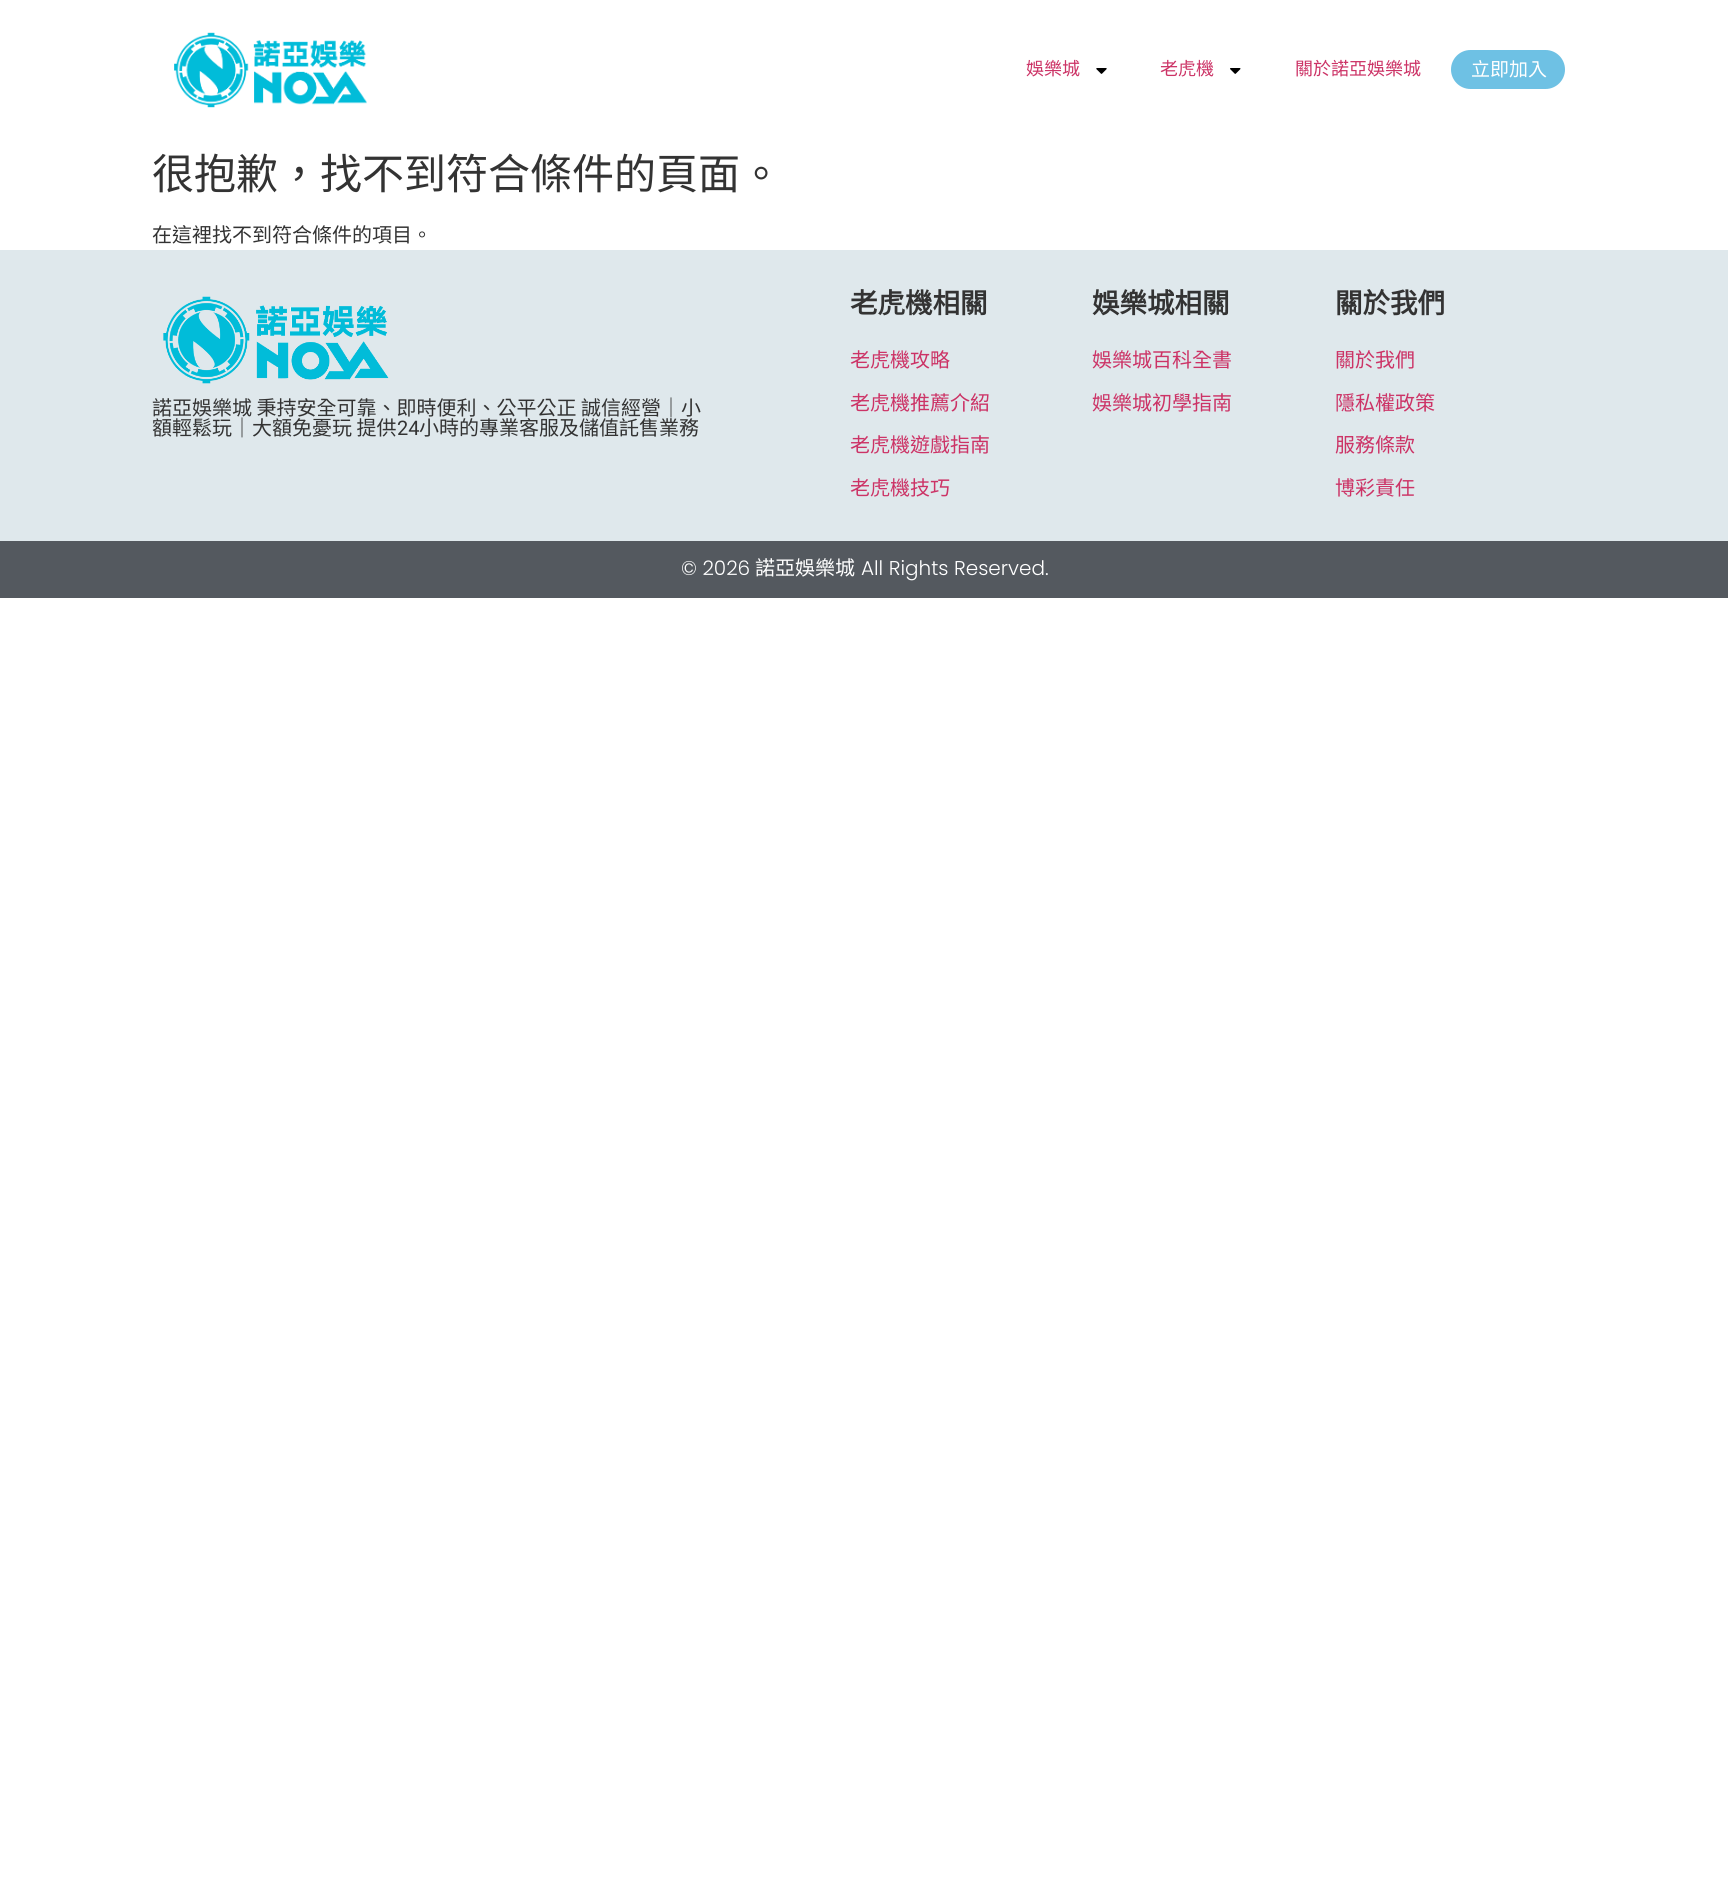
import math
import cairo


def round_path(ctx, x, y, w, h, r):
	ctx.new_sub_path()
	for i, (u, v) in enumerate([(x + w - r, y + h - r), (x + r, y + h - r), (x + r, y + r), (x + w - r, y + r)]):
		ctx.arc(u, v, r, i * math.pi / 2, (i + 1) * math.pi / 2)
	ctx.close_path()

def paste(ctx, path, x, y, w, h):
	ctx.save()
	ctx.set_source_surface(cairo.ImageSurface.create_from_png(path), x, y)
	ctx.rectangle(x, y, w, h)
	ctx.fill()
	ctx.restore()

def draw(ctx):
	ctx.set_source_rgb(1, 1, 1)
	ctx.paint()
	paste(ctx, 'media/1.png', 174, 32, 193, 76)
	ctx.select_font_face('Noto Sans CJK TC')
	ctx.set_font_size(18)
	ctx.set_source_rgb(0.8, 0.2, 0.4)
	ctx.move_to(1026, 75)
	ctx.show_text('娛樂城')
	paste(ctx, 'media/2.png', 1096, 68, 11, 6)
	ctx.move_to(1160, 75)
	ctx.show_text('老虎機')
	paste(ctx, 'media/3.png', 1230, 68, 11, 6)
	ctx.move_to(1295, 75)
	ctx.show_text('關於諾亞娛樂城')
	ctx.set_source_rgb(0.431, 0.757, 0.894)
	round_path(ctx, 1451, 50, 114, 39, 19.5)
	ctx.fill()
	ctx.set_font_size(19)
	ctx.set_source_rgb(1, 1, 1)
	ctx.move_to(1471, 76)
	ctx.show_text('立即加入')
	ctx.set_font_size(42)
	ctx.set_source_rgb(0.2, 0.2, 0.2)
	ctx.move_to(152, 189)
	ctx.show_text('很抱歉，找不到符合條件的頁面。')
	ctx.set_font_size(20)
	ctx.move_to(152, 242)
	ctx.show_text('在這裡找不到符合條件的項目。')
	ctx.set_source_rgb(0.875, 0.91, 0.922)
	ctx.rectangle(0, 250, 1728, 291)
	ctx.fill()
	paste(ctx, 'media/4.png', 163, 296, 226, 88)
	ctx.set_source_rgb(0.2, 0.2, 0.2)
	ctx.move_to(152, 415)
	ctx.show_text('諾亞娛樂城 秉持安全可靠、即時便利、公平公正 誠信經營｜小')
	ctx.move_to(152, 435)
	ctx.show_text('額輕鬆玩｜大額免憂玩 提供')
	ctx.select_font_face('Roboto')
	ctx.move_to(397, 435)
	ctx.show_text('24')
	ctx.select_font_face('Noto Sans CJK TC')
	ctx.move_to(419, 435)
	ctx.show_text('小時的專業客服及儲值託售業務')
	ctx.select_font_face('Noto Sans CJK TC', cairo.FONT_SLANT_NORMAL, cairo.FONT_WEIGHT_BOLD)
	ctx.set_font_size(27.5)
	ctx.move_to(850, 313)
	ctx.show_text('老虎機相關')
	ctx.select_font_face('Noto Sans CJK TC')
	ctx.set_font_size(20)
	ctx.set_source_rgb(0.8, 0.2, 0.4)
	for x, y, s in [
		(850, 367, '老虎機攻略'),
		(850, 410, '老虎機推薦介紹'),
		(850, 452, '老虎機遊戲指南'),
		(850, 495, '老虎機技巧'),
	]:
		ctx.move_to(x, y)
		ctx.show_text(s)
	ctx.select_font_face('Noto Sans CJK TC', cairo.FONT_SLANT_NORMAL, cairo.FONT_WEIGHT_BOLD)
	ctx.set_font_size(27.5)
	ctx.set_source_rgb(0.2, 0.2, 0.2)
	ctx.move_to(1092, 313)
	ctx.show_text('娛樂城相關')
	ctx.select_font_face('Noto Sans CJK TC')
	ctx.set_font_size(20)
	ctx.set_source_rgb(0.8, 0.2, 0.4)
	ctx.move_to(1092, 367)
	ctx.show_text('娛樂城百科全書')
	ctx.move_to(1092, 410)
	ctx.show_text('娛樂城初學指南')
	ctx.select_font_face('Noto Sans CJK TC', cairo.FONT_SLANT_NORMAL, cairo.FONT_WEIGHT_BOLD)
	ctx.set_font_size(27.5)
	ctx.set_source_rgb(0.2, 0.2, 0.2)
	ctx.move_to(1335, 313)
	ctx.show_text('關於我們')
	ctx.select_font_face('Noto Sans CJK TC')
	ctx.set_font_size(20)
	ctx.set_source_rgb(0.8, 0.2, 0.4)
	for x, y, s in [
		(1335, 367, '關於我們'),
		(1335, 410, '隱私權政策'),
		(1335, 452, '服務條款'),
		(1335, 495, '博彩責任'),
	]:
		ctx.move_to(x, y)
		ctx.show_text(s)
	ctx.set_source_rgb(0.329, 0.349, 0.373)
	ctx.rectangle(0, 541, 1728, 57)
	ctx.fill()
	ctx.select_font_face('Poppins Light')
	ctx.set_source_rgb(1, 1, 1)
	ctx.move_to(681, 575)
	ctx.show_text('© 2026')
	ctx.select_font_face('Noto Sans CJK TC')
	ctx.move_to(755, 575)
	ctx.show_text('諾亞娛樂城')
	ctx.select_font_face('Poppins Light')
	ctx.move_to(861, 575)
	ctx.show_text('All Rights Reserved.')


surface = cairo.ImageSurface(cairo.FORMAT_RGB24, 1728, 1885)
ctx = cairo.Context(surface)
options = cairo.FontOptions()
options.set_hint_metrics(cairo.HINT_METRICS_OFF)
options.set_hint_style(cairo.HINT_STYLE_NONE)
ctx.set_font_options(options)
ctx.set_miter_limit(4)
draw(ctx)
surface.write_to_png('image.png')
